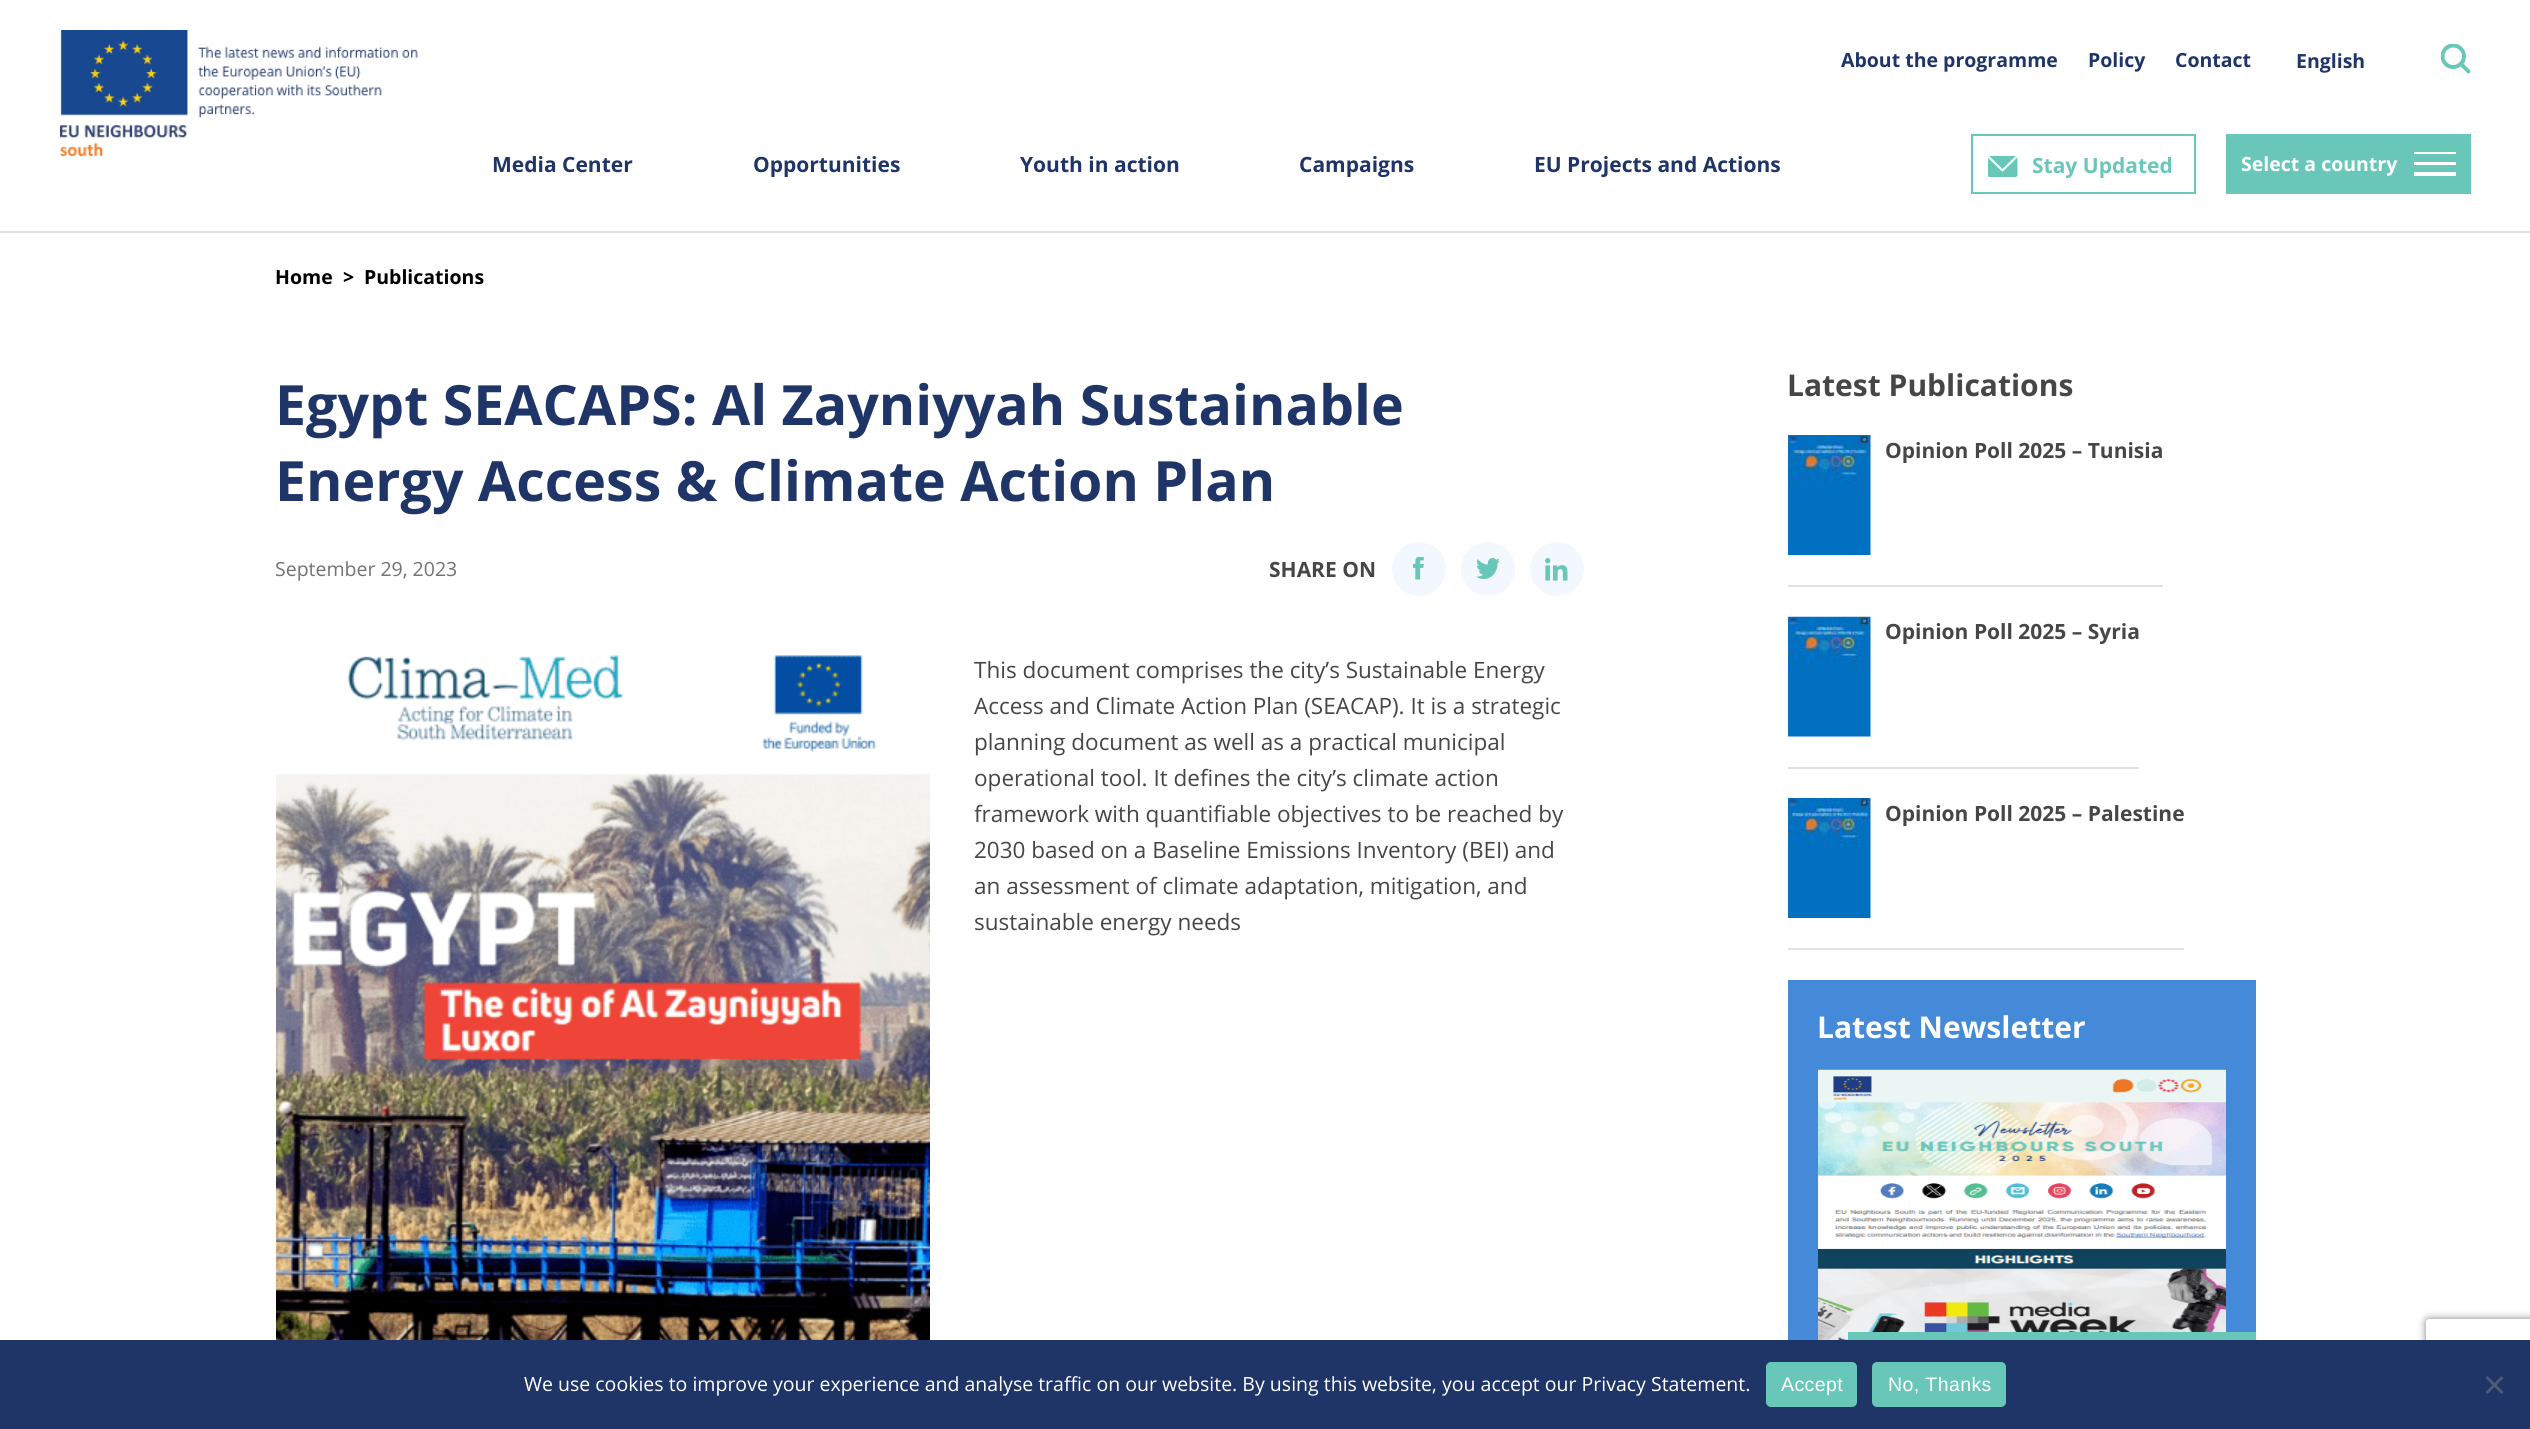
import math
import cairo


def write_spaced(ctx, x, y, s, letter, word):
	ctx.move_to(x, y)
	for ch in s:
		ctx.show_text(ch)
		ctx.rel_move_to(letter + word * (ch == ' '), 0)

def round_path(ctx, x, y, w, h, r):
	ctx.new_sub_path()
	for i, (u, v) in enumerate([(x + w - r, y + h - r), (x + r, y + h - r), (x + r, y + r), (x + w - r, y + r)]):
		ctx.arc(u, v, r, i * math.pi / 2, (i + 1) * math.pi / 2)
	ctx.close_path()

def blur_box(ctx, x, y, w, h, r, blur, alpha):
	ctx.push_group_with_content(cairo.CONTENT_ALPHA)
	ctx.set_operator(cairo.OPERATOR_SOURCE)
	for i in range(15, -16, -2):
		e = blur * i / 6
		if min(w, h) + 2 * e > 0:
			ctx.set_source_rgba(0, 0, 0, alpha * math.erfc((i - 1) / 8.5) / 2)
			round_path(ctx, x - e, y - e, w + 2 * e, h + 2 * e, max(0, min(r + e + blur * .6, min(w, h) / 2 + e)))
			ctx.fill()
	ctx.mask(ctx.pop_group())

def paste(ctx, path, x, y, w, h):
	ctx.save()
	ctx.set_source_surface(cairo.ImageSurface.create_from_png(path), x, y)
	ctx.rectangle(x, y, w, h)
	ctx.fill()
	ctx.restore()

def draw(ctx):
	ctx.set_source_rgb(1, 1, 1)
	ctx.paint()
	ctx.set_source_rgb(0.886, 0.886, 0.886)
	ctx.rectangle(0, 231, 2530, 2)
	ctx.fill()
	paste(ctx, 'media/1.png', 60, 30, 358, 126)
	ctx.select_font_face('Open Sans', cairo.FONT_SLANT_NORMAL, cairo.FONT_WEIGHT_BOLD)
	ctx.set_font_size(19.5)
	ctx.set_source_rgb(0.122, 0.204, 0.404)
	for x, y, s in [
		(1841, 67, 'About the programme'),
		(2088, 67, 'Policy'),
		(2175, 67, 'Contact'),
		(2296, 68, 'English'),
	]:
		ctx.move_to(x, y)
		ctx.show_text(s)
	paste(ctx, 'media/2.png', 2441, 44, 30, 30)
	ctx.set_font_size(21)
	for x, y, s in [
		(492, 172, 'Media Center'),
		(753, 172, 'Opportunities'),
		(1020, 172, 'Youth in action'),
		(1299, 172, 'Campaigns'),
		(1534, 172, 'EU Projects and Actions'),
	]:
		ctx.move_to(x, y)
		ctx.show_text(s)
	ctx.rectangle(1972, 135, 223, 58)
	ctx.set_source_rgb(0.412, 0.78, 0.729)
	ctx.stroke()
	paste(ctx, 'media/3.png', 1988, 156, 30, 21)
	ctx.move_to(2032, 173)
	ctx.show_text('Stay Updated')
	ctx.rectangle(2226, 134, 245, 60)
	ctx.fill()
	ctx.set_font_size(19.5)
	ctx.set_source_rgb(1, 1, 1)
	ctx.move_to(2241, 171)
	ctx.show_text('Select a country')
	ctx.set_fill_rule(cairo.FILL_RULE_EVEN_ODD)
	ctx.new_path()
	ctx.move_to(2414, 172)
	ctx.line_to(2456, 172)
	ctx.line_to(2456, 176)
	ctx.line_to(2414, 176)
	ctx.close_path()
	ctx.move_to(2414, 162)
	ctx.line_to(2456, 162)
	ctx.line_to(2456, 165)
	ctx.line_to(2414, 165)
	ctx.close_path()
	ctx.move_to(2414, 152)
	ctx.line_to(2456, 152)
	ctx.line_to(2456, 154)
	ctx.line_to(2414, 154)
	ctx.close_path()
	ctx.fill()
	ctx.set_source_rgb(0, 0, 0)
	for x, y, s in [
		(275, 284, 'Home'),
		(343, 284, '>'),
		(364, 284, 'Publications'),
	]:
		ctx.move_to(x, y)
		ctx.show_text(s)
	ctx.set_font_size(55.5)
	ctx.set_source_rgb(0.122, 0.204, 0.404)
	ctx.move_to(275, 425)
	ctx.show_text('Egypt SEACAPS: Al Zayniyyah Sustainable')
	ctx.move_to(275, 501)
	ctx.show_text('Energy Access & Climate Action Plan')
	ctx.select_font_face('Open Sans')
	ctx.set_font_size(19.5)
	ctx.set_source_rgb(0.447, 0.447, 0.447)
	ctx.move_to(275, 576)
	ctx.show_text('September 29, 2023')
	ctx.select_font_face('Open Sans', cairo.FONT_SLANT_NORMAL, cairo.FONT_WEIGHT_BOLD)
	ctx.set_font_size(21)
	ctx.set_source_rgb(0.275, 0.275, 0.275)
	ctx.move_to(1269, 577)
	ctx.show_text('SHARE ON')
	ctx.set_source_rgb(0.953, 0.969, 1)
	ctx.new_path()
	ctx.arc(1419, 569, 27, 0, 2 * math.pi)
	ctx.fill()
	paste(ctx, 'media/4.png', 1413, 557, 11, 23)
	ctx.arc(1488, 569, 27, 0, 2 * math.pi)
	ctx.fill()
	paste(ctx, 'media/5.png', 1476, 558, 24, 21)
	ctx.arc(1557, 569, 27, 0, 2 * math.pi)
	ctx.fill()
	paste(ctx, 'media/6.png', 1545, 558, 23, 23)
	paste(ctx, 'media/7.png', 276, 655, 654, 685)
	ctx.select_font_face('Open Sans')
	ctx.set_font_size(22.5)
	ctx.set_source_rgb(0.275, 0.275, 0.275)
	for x, y, s in [
		(974, 678, 'This document comprises the city’s Sustainable Energy'),
		(974, 714, 'Access and Climate Action Plan (SEACAP). It is a strategic'),
		(974, 750, 'planning document as well as a practical municipal'),
		(974, 786, 'operational tool. It defines the city’s climate action'),
		(974, 822, 'framework with quantifiable objectives to be reached by'),
		(974, 858, '2030 based on a Baseline Emissions Inventory (BEI) and'),
		(974, 894, 'an assessment of climate adaptation, mitigation, and'),
		(974, 930, 'sustainable energy needs'),
	]:
		ctx.move_to(x, y)
		ctx.show_text(s)
	ctx.select_font_face('Open Sans', cairo.FONT_SLANT_NORMAL, cairo.FONT_WEIGHT_BOLD)
	ctx.set_font_size(30)
	ctx.move_to(1787, 396)
	ctx.show_text('Latest Publications')
	ctx.set_source_rgb(0.886, 0.886, 0.886)
	ctx.rectangle(1788, 585, 375, 2)
	ctx.fill()
	paste(ctx, 'media/8.png', 1788, 435, 83, 120)
	ctx.set_font_size(21)
	ctx.set_source_rgb(0.275, 0.275, 0.275)
	ctx.move_to(1885, 458)
	ctx.show_text('Opinion Poll 2025 – Tunisia')
	ctx.set_source_rgb(0.886, 0.886, 0.886)
	ctx.rectangle(1788, 767, 351, 2)
	ctx.fill()
	paste(ctx, 'media/9.png', 1788, 616, 83, 121)
	ctx.set_source_rgb(0.275, 0.275, 0.275)
	ctx.move_to(1885, 639)
	ctx.show_text('Opinion Poll 2025 – Syria')
	ctx.set_source_rgb(0.886, 0.886, 0.886)
	ctx.rectangle(1788, 948, 396, 2)
	ctx.fill()
	paste(ctx, 'media/10.png', 1788, 798, 83, 120)
	ctx.set_source_rgb(0.275, 0.275, 0.275)
	ctx.move_to(1885, 821)
	ctx.show_text('Opinion Poll 2025 – Palestine')
	ctx.set_source_rgb(0.267, 0.541, 0.847)
	ctx.rectangle(1788, 980, 468, 360)
	ctx.fill()
	ctx.set_font_size(30)
	ctx.set_source_rgb(1, 1, 1)
	ctx.move_to(1817, 1038)
	ctx.show_text('Latest Newsletter')
	paste(ctx, 'media/11.png', 1818, 1069, 408, 271)
	ctx.set_source_rgb(0.412, 0.78, 0.729)
	ctx.rectangle(1848, 1332, 408, 8)
	ctx.fill()
	ctx.save()
	ctx.new_path()
	ctx.move_to(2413, 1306)
	ctx.line_to(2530, 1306)
	ctx.line_to(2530, 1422)
	ctx.line_to(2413, 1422)
	ctx.close_path()
	ctx.move_to(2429, 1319)
	ctx.line_to(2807, 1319)
	ctx.curve_to(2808.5, 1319, 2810, 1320.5, 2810, 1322)
	ctx.line_to(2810, 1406)
	ctx.curve_to(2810, 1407.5, 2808.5, 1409, 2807, 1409)
	ctx.line_to(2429, 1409)
	ctx.curve_to(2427.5, 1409, 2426, 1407.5, 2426, 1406)
	ctx.line_to(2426, 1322)
	ctx.curve_to(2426, 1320.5, 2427.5, 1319, 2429, 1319)
	ctx.close_path()
	ctx.clip()
	ctx.set_source_rgb(0.502, 0.502, 0.502)
	blur_box(ctx, 2426, 1319, 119, 90, 3, 4, 1)
	ctx.restore()
	ctx.set_source_rgb(0.122, 0.204, 0.404)
	ctx.rectangle(0, 1340, 2530, 89)
	ctx.fill()
	ctx.select_font_face('Open Sans')
	ctx.set_font_size(19.5)
	ctx.set_source_rgb(1, 1, 1)
	ctx.move_to(524, 1391)
	ctx.show_text('We use cookies to improve your experience and analyse traffic on our website. By using this website, you accept our Privacy Statement.')
	ctx.set_source_rgb(0.412, 0.78, 0.729)
	round_path(ctx, 1766, 1362, 91, 45, 5)
	ctx.fill()
	ctx.select_font_face('Liberation Sans')
	ctx.set_source_rgb(1, 1, 1)
	write_spaced(ctx, 1781, 1391, 'Accept', 0.4, 0)
	ctx.set_source_rgb(0.412, 0.78, 0.729)
	round_path(ctx, 1872, 1362, 134, 45, 5)
	ctx.fill()
	ctx.set_source_rgb(1, 1, 1)
	write_spaced(ctx, 1888, 1391, 'No, Thanks', 0.4, 0)
	ctx.set_source_rgb(0.314, 0.353, 0.455)
	ctx.set_fill_rule(cairo.FILL_RULE_WINDING)
	ctx.new_path()
	ctx.move_to(2501.5, 1376)
	ctx.line_to(2503.5, 1378)
	ctx.line_to(2487.5, 1394)
	ctx.line_to(2485.5, 1392)
	ctx.close_path()
	ctx.fill()
	ctx.new_path()
	ctx.move_to(2485.5, 1378)
	ctx.line_to(2487.5, 1376)
	ctx.line_to(2503.5, 1392)
	ctx.line_to(2501.5, 1394)
	ctx.close_path()
	ctx.fill()


surface = cairo.ImageSurface(cairo.FORMAT_RGB24, 2530, 1429)
ctx = cairo.Context(surface)
options = cairo.FontOptions()
options.set_hint_metrics(cairo.HINT_METRICS_OFF)
options.set_hint_style(cairo.HINT_STYLE_NONE)
ctx.set_font_options(options)
ctx.set_miter_limit(4)
draw(ctx)
surface.write_to_png('image.png')
